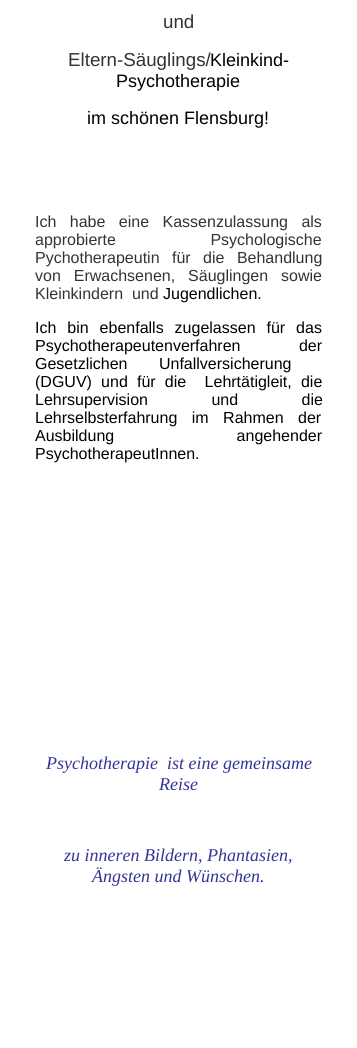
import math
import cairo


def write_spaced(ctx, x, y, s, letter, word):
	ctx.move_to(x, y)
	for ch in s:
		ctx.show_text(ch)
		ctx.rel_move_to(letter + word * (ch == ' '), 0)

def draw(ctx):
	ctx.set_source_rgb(1, 1, 1)
	ctx.paint()
	ctx.select_font_face('Liberation Sans')
	ctx.set_font_size(18.75)
	ctx.set_source_rgb(0.2, 0.2, 0.2)
	ctx.move_to(163, 28)
	ctx.show_text('und')
	ctx.move_to(68, 66)
	ctx.show_text('Eltern-Säuglings/')
	ctx.set_font_size(18)
	ctx.set_source_rgb(0, 0, 0)
	for x, y, s in [
		(210, 66, 'Kleinkind-'),
		(116, 87, 'Psychotherapie'),
		(87, 124, 'im schönen Flensburg!'),
	]:
		ctx.move_to(x, y)
		ctx.show_text(s)
	ctx.set_font_size(16)
	ctx.set_source_rgb(0.2, 0.2, 0.2)
	write_spaced(ctx, 35, 227, 'Ich habe eine Kassenzulassung als', 0, 9)
	write_spaced(ctx, 35, 245, 'approbierte Psychologische', 0, 90)
	write_spaced(ctx, 35, 263, 'Pychotherapeutin für die Behandlung', 0, 8)
	write_spaced(ctx, 35, 281, 'von Erwachsenen, Säuglingen sowie', 0, 8.5)
	ctx.move_to(35, 299)
	ctx.show_text('Kleinkindern  und')
	ctx.set_source_rgb(0, 0, 0)
	ctx.move_to(163, 299)
	ctx.show_text('Jugendlichen.')
	write_spaced(ctx, 35, 333, 'Ich bin ebenfalls zugelassen für das', 0, 6.5)
	write_spaced(ctx, 35, 351, 'Psychotherapeutenverfahren der', 0, 54)
	write_spaced(ctx, 35, 369, 'Gesetzlichen Unfallversicherung', 0, 27)
	write_spaced(ctx, 35, 387, '(DGUV) und für die  Lehrtätigleit, die', 0, 4.75)
	write_spaced(ctx, 35, 405, 'Lehrsupervision und die', 0, 59)
	write_spaced(ctx, 35, 423, 'Lehrselbsterfahrung im Rahmen der', 0, 10)
	write_spaced(ctx, 35, 441, 'Ausbildung angehender', 0, 118)
	ctx.move_to(35, 459)
	ctx.show_text('PsychotherapeutInnen.')
	ctx.select_font_face('Liberation Serif', cairo.FONT_SLANT_ITALIC)
	ctx.set_font_size(18)
	ctx.set_source_rgb(0.2, 0.2, 0.6)
	for x, y, s in [
		(46, 769, 'Psychotherapie  ist eine gemeinsame'),
		(159, 790, 'Reise'),
		(64, 861, 'zu inneren Bildern, Phantasien,'),
		(92, 882, 'Ängsten und Wünschen.'),
	]:
		ctx.move_to(x, y)
		ctx.show_text(s)


surface = cairo.ImageSurface(cairo.FORMAT_RGB24, 357, 1048)
ctx = cairo.Context(surface)
options = cairo.FontOptions()
options.set_hint_metrics(cairo.HINT_METRICS_OFF)
options.set_hint_style(cairo.HINT_STYLE_NONE)
ctx.set_font_options(options)
ctx.set_miter_limit(4)
draw(ctx)
surface.write_to_png('image.png')
